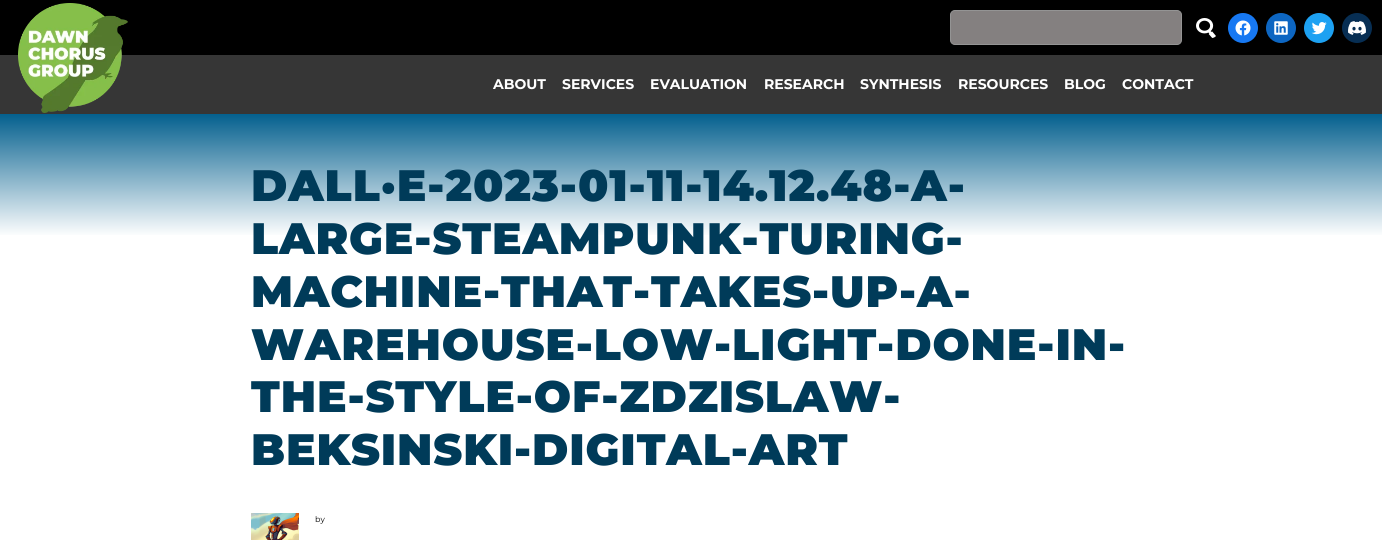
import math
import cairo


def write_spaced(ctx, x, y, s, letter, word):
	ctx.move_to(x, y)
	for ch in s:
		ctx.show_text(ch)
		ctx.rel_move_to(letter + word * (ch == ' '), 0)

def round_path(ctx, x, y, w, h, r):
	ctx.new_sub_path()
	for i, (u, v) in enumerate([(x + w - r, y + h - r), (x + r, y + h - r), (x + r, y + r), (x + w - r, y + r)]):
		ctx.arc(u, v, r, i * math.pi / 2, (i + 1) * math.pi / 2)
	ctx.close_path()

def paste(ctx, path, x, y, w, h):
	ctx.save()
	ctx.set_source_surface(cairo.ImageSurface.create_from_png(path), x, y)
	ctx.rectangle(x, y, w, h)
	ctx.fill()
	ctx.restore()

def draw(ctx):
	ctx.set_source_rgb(1, 1, 1)
	ctx.paint()
	ctx.set_source_rgb(0, 0, 0)
	ctx.rectangle(0, 0, 1382, 55)
	ctx.fill()
	ctx.set_source_rgb(0.518, 0.502, 0.502)
	round_path(ctx, 950.5, 10.5, 231, 34, 4.5)
	ctx.fill_preserve()
	ctx.set_source_rgb(0.58, 0.58, 0.58)
	ctx.set_line_width(1)
	ctx.stroke()
	paste(ctx, 'media/1.png', 1196, 18, 20, 20)
	ctx.set_source_rgb(0.09, 0.471, 0.949)
	ctx.arc(1243, 28, 15, 0, 2 * math.pi)
	ctx.fill()
	paste(ctx, 'media/2.png', 1235, 20, 16, 16)
	ctx.set_source_rgb(0.051, 0.4, 0.761)
	ctx.arc(1281, 28, 15, 0, 2 * math.pi)
	ctx.fill()
	paste(ctx, 'media/3.png', 1274, 21, 14, 14)
	ctx.set_source_rgb(0.114, 0.631, 0.949)
	ctx.arc(1319, 28, 15, 0, 2 * math.pi)
	ctx.fill()
	paste(ctx, 'media/4.png', 1311, 22, 16, 13)
	ctx.set_source_rgb(0.031, 0.18, 0.325)
	ctx.arc(1357, 28, 15, 0, 2 * math.pi)
	ctx.fill()
	paste(ctx, 'media/5.png', 1348, 21, 18, 14)
	ctx.set_source_rgb(0.212, 0.212, 0.212)
	ctx.rectangle(0, 55, 1382, 59)
	ctx.fill()
	paste(ctx, 'media/6.png', 18, 3, 110, 110)
	ctx.select_font_face('Montserrat', cairo.FONT_SLANT_NORMAL, cairo.FONT_WEIGHT_BOLD)
	ctx.set_font_size(14)
	ctx.set_source_rgb(1, 1, 1)
	for x, y, s in [
		(493, 89, 'ABOUT'),
		(562, 89, 'SERVICES'),
		(650, 89, 'EVALUATION'),
		(764, 89, 'RESEARCH'),
		(860, 89, 'SYNTHESIS'),
		(958, 89, 'RESOURCES'),
		(1064, 89, 'BLOG'),
		(1122, 89, 'CONTACT'),
	]:
		ctx.move_to(x, y)
		ctx.show_text(s)
	gradient = cairo.LinearGradient(691, 114, 691, 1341)
	gradient.add_color_stop_rgba(0, 0.016, 0.376, 0.557, 1)
	gradient.add_color_stop_rgba(0.1, 1, 1, 1, 1)
	ctx.set_source(gradient)
	ctx.rectangle(0, 114, 1382, 121)
	ctx.fill()
	ctx.select_font_face('Montserrat Black')
	ctx.set_font_size(44)
	ctx.set_source_rgb(0, 0.231, 0.349)
	for x, y, s in [
		(251, 201, 'DALL·E-2023-01-11-14.12.48-A-'),
		(251, 254, 'LARGE-STEAMPUNK-TURING-'),
		(251, 307, 'MACHINE-THAT-TAKES-UP-A-'),
		(251, 360, 'WAREHOUSE-LOW-LIGHT-DONE-IN-'),
		(251, 412, 'THE-STYLE-OF-ZDZISLAW-'),
		(251, 465, 'BEKSINSKI-DIGITAL-ART'),
	]:
		write_spaced(ctx, x, y, s, 0.9, 0)
	paste(ctx, 'media/7.png', 251, 513, 48, 27)
	ctx.select_font_face('Montserrat')
	ctx.set_font_size(8)
	ctx.set_source_rgb(0, 0, 0)
	ctx.move_to(315, 522)
	ctx.show_text('by')


surface = cairo.ImageSurface(cairo.FORMAT_RGB24, 1382, 540)
ctx = cairo.Context(surface)
options = cairo.FontOptions()
options.set_hint_metrics(cairo.HINT_METRICS_OFF)
options.set_hint_style(cairo.HINT_STYLE_NONE)
ctx.set_font_options(options)
ctx.set_miter_limit(4)
draw(ctx)
surface.write_to_png('image.png')
